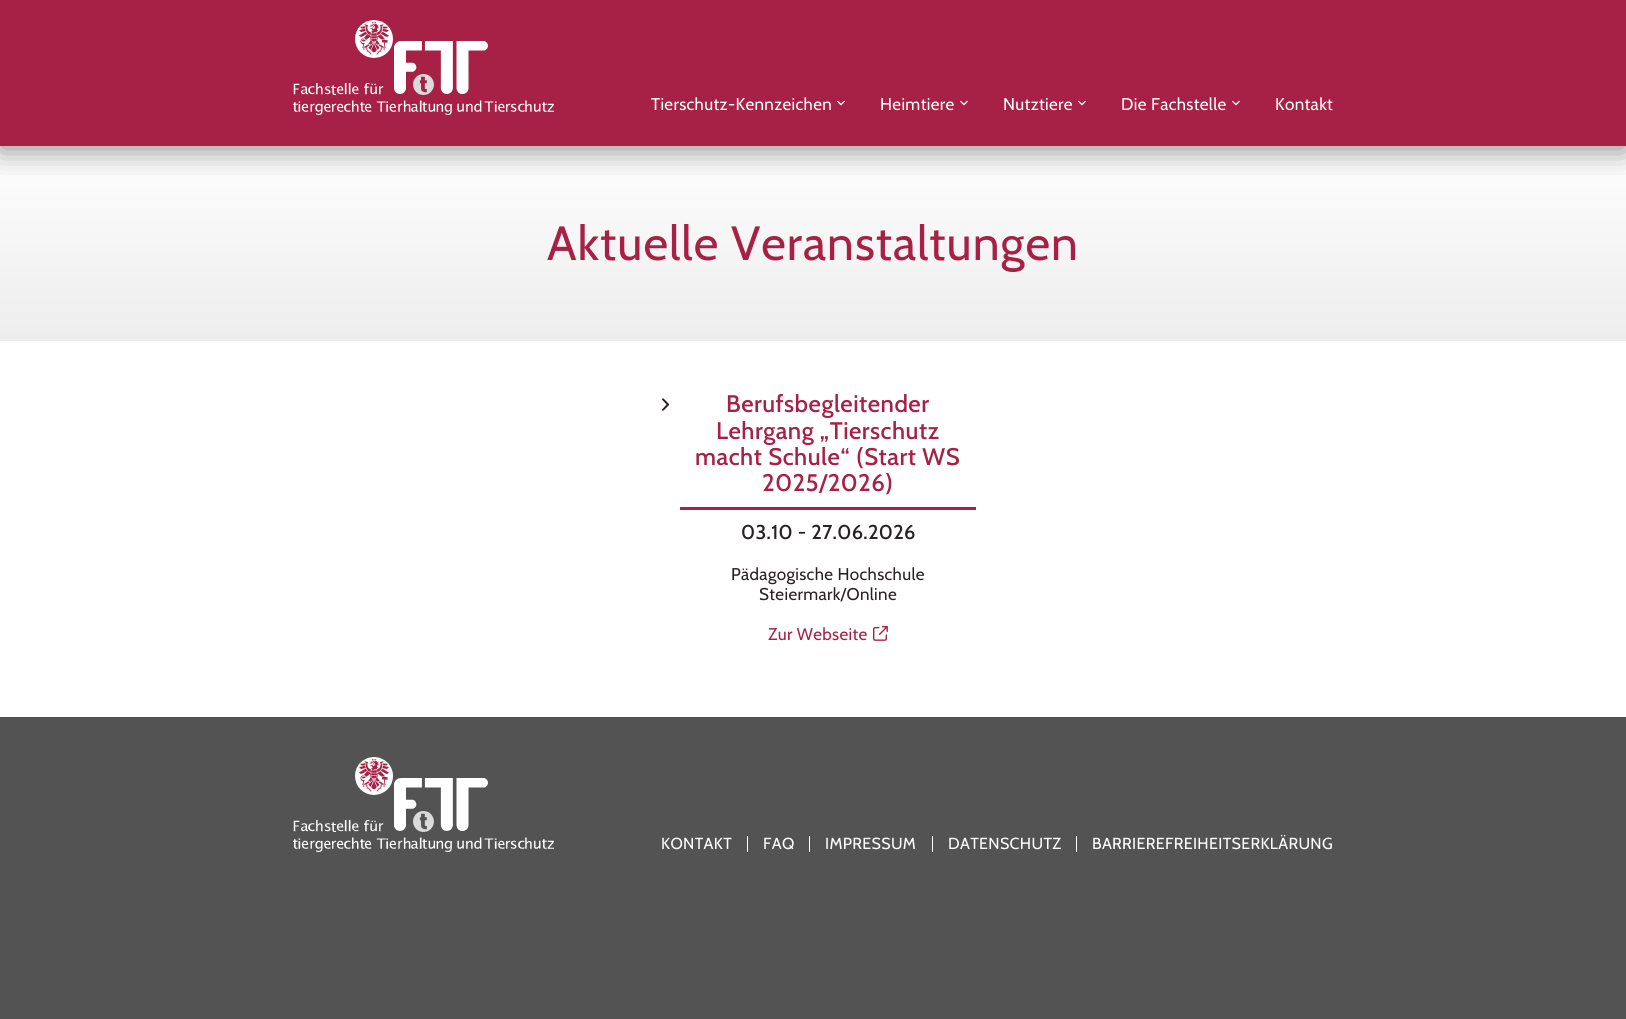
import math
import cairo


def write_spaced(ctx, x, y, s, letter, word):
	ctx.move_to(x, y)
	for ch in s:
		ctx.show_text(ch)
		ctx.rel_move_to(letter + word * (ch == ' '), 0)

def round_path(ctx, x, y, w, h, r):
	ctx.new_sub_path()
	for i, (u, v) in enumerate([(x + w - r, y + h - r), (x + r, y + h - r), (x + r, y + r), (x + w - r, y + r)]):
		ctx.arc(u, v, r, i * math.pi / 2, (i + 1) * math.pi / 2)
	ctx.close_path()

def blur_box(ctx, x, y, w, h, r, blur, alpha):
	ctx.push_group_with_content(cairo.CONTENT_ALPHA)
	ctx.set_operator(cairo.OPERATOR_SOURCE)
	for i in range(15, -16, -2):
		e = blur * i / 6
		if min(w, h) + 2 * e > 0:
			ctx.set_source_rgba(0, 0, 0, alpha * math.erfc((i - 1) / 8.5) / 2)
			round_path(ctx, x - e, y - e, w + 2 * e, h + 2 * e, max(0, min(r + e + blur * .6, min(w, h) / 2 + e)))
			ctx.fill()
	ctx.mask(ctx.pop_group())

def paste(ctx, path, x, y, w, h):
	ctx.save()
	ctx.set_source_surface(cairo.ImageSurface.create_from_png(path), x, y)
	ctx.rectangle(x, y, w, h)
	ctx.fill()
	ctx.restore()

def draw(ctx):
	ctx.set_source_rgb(0.325, 0.325, 0.325)
	ctx.paint()
	ctx.set_source_rgb(0.651, 0.129, 0.271)
	ctx.rectangle(0, 0, 1626, 146)
	ctx.fill()
	gradient = cairo.LinearGradient(813, 146, 813, 341)
	gradient.add_color_stop_rgba(0, 0.996, 0.996, 0.996, 1)
	gradient.add_color_stop_rgba(1, 0.929, 0.929, 0.929, 1)
	ctx.set_source(gradient)
	ctx.rectangle(0, 146, 1626, 195)
	ctx.fill()
	ctx.save()
	ctx.rectangle(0, 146, 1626, 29)
	ctx.clip()
	ctx.set_source_rgb(0, 0, 0)
	blur_box(ctx, 0, 2, 1626, 146, 0, 15.5, 0.5)
	ctx.restore()
	paste(ctx, 'media/1.png', 293, 20, 261, 95)
	ctx.select_font_face('Cabin')
	ctx.set_font_size(17)
	ctx.set_source_rgb(1, 1, 1)
	write_spaced(ctx, 651, 110, 'Tierschutz-Kennzeichen', 0.35, 0)
	paste(ctx, 'media/2.png', 837, 100, 8, 6)
	write_spaced(ctx, 880, 110, 'Heimtiere', 0.35, 0)
	paste(ctx, 'media/2.png', 960, 100, 8, 6)
	write_spaced(ctx, 1003, 110, 'Nutztiere', 0.35, 0)
	paste(ctx, 'media/2.png', 1078, 100, 8, 6)
	write_spaced(ctx, 1121, 110, 'Die Fachstelle', 0.35, 0)
	paste(ctx, 'media/2.png', 1232, 100, 8, 6)
	write_spaced(ctx, 1275, 110, 'Kontakt', 0.35, 0)
	ctx.set_font_size(48)
	ctx.set_source_rgb(0.651, 0.129, 0.271)
	write_spaced(ctx, 547, 260, 'Aktuelle Veranstaltungen', 1, 0)
	ctx.set_source_rgb(1, 1, 1)
	ctx.rectangle(0, 341, 1626, 376)
	ctx.fill()
	paste(ctx, 'media/3.png', 662, 398, 8, 13)
	ctx.select_font_face('Cabin Medium')
	ctx.set_font_size(24)
	ctx.set_source_rgb(0.651, 0.129, 0.271)
	for x, y, s in [
		(726, 412, 'Berufsbegleitender'),
		(716, 439, 'Lehrgang „Tierschutz'),
		(695, 465, 'macht Schule“ (Start WS'),
		(762, 491, '2025/2026)'),
	]:
		write_spaced(ctx, x, y, s, 0.5, 0)
	ctx.rectangle(680, 507, 296, 3)
	ctx.fill()
	ctx.set_font_size(20)
	ctx.set_source_rgb(0.157, 0.133, 0.137)
	write_spaced(ctx, 741, 539, '03.10 - 27.06.2026', 0.35, 0)
	ctx.select_font_face('Cabin')
	ctx.set_font_size(17)
	write_spaced(ctx, 731, 580, 'Pädagogische Hochschule', 0.35, 0)
	write_spaced(ctx, 759, 600, 'Steiermark/Online', 0.35, 0)
	ctx.set_source_rgb(0.651, 0.129, 0.271)
	write_spaced(ctx, 768, 640, 'Zur Webseite', 0.35, 0)
	paste(ctx, 'media/4.png', 873, 626, 15, 15)
	paste(ctx, 'media/5.png', 293, 757, 261, 95)
	ctx.set_source_rgb(1, 1, 1)
	ctx.rectangle(747, 836, 1, 16)
	ctx.fill()
	ctx.set_font_size(16)
	write_spaced(ctx, 661, 849, 'KONTAKT', 0.35, 0)
	ctx.rectangle(809, 836, 1, 16)
	ctx.fill()
	write_spaced(ctx, 763, 849, 'FAQ', 0.35, 0)
	ctx.rectangle(932, 836, 1, 16)
	ctx.fill()
	write_spaced(ctx, 825, 849, 'IMPRESSUM', 0.35, 0)
	ctx.rectangle(1076, 836, 1, 16)
	ctx.fill()
	write_spaced(ctx, 948, 849, 'DATENSCHUTZ', 0.35, 0)
	write_spaced(ctx, 1092, 849, 'BARRIEREFREIHEITSERKLÄRUNG', 0.35, 0)


surface = cairo.ImageSurface(cairo.FORMAT_RGB24, 1626, 1019)
ctx = cairo.Context(surface)
options = cairo.FontOptions()
options.set_hint_metrics(cairo.HINT_METRICS_OFF)
options.set_hint_style(cairo.HINT_STYLE_NONE)
ctx.set_font_options(options)
ctx.set_miter_limit(4)
draw(ctx)
surface.write_to_png('image.png')
